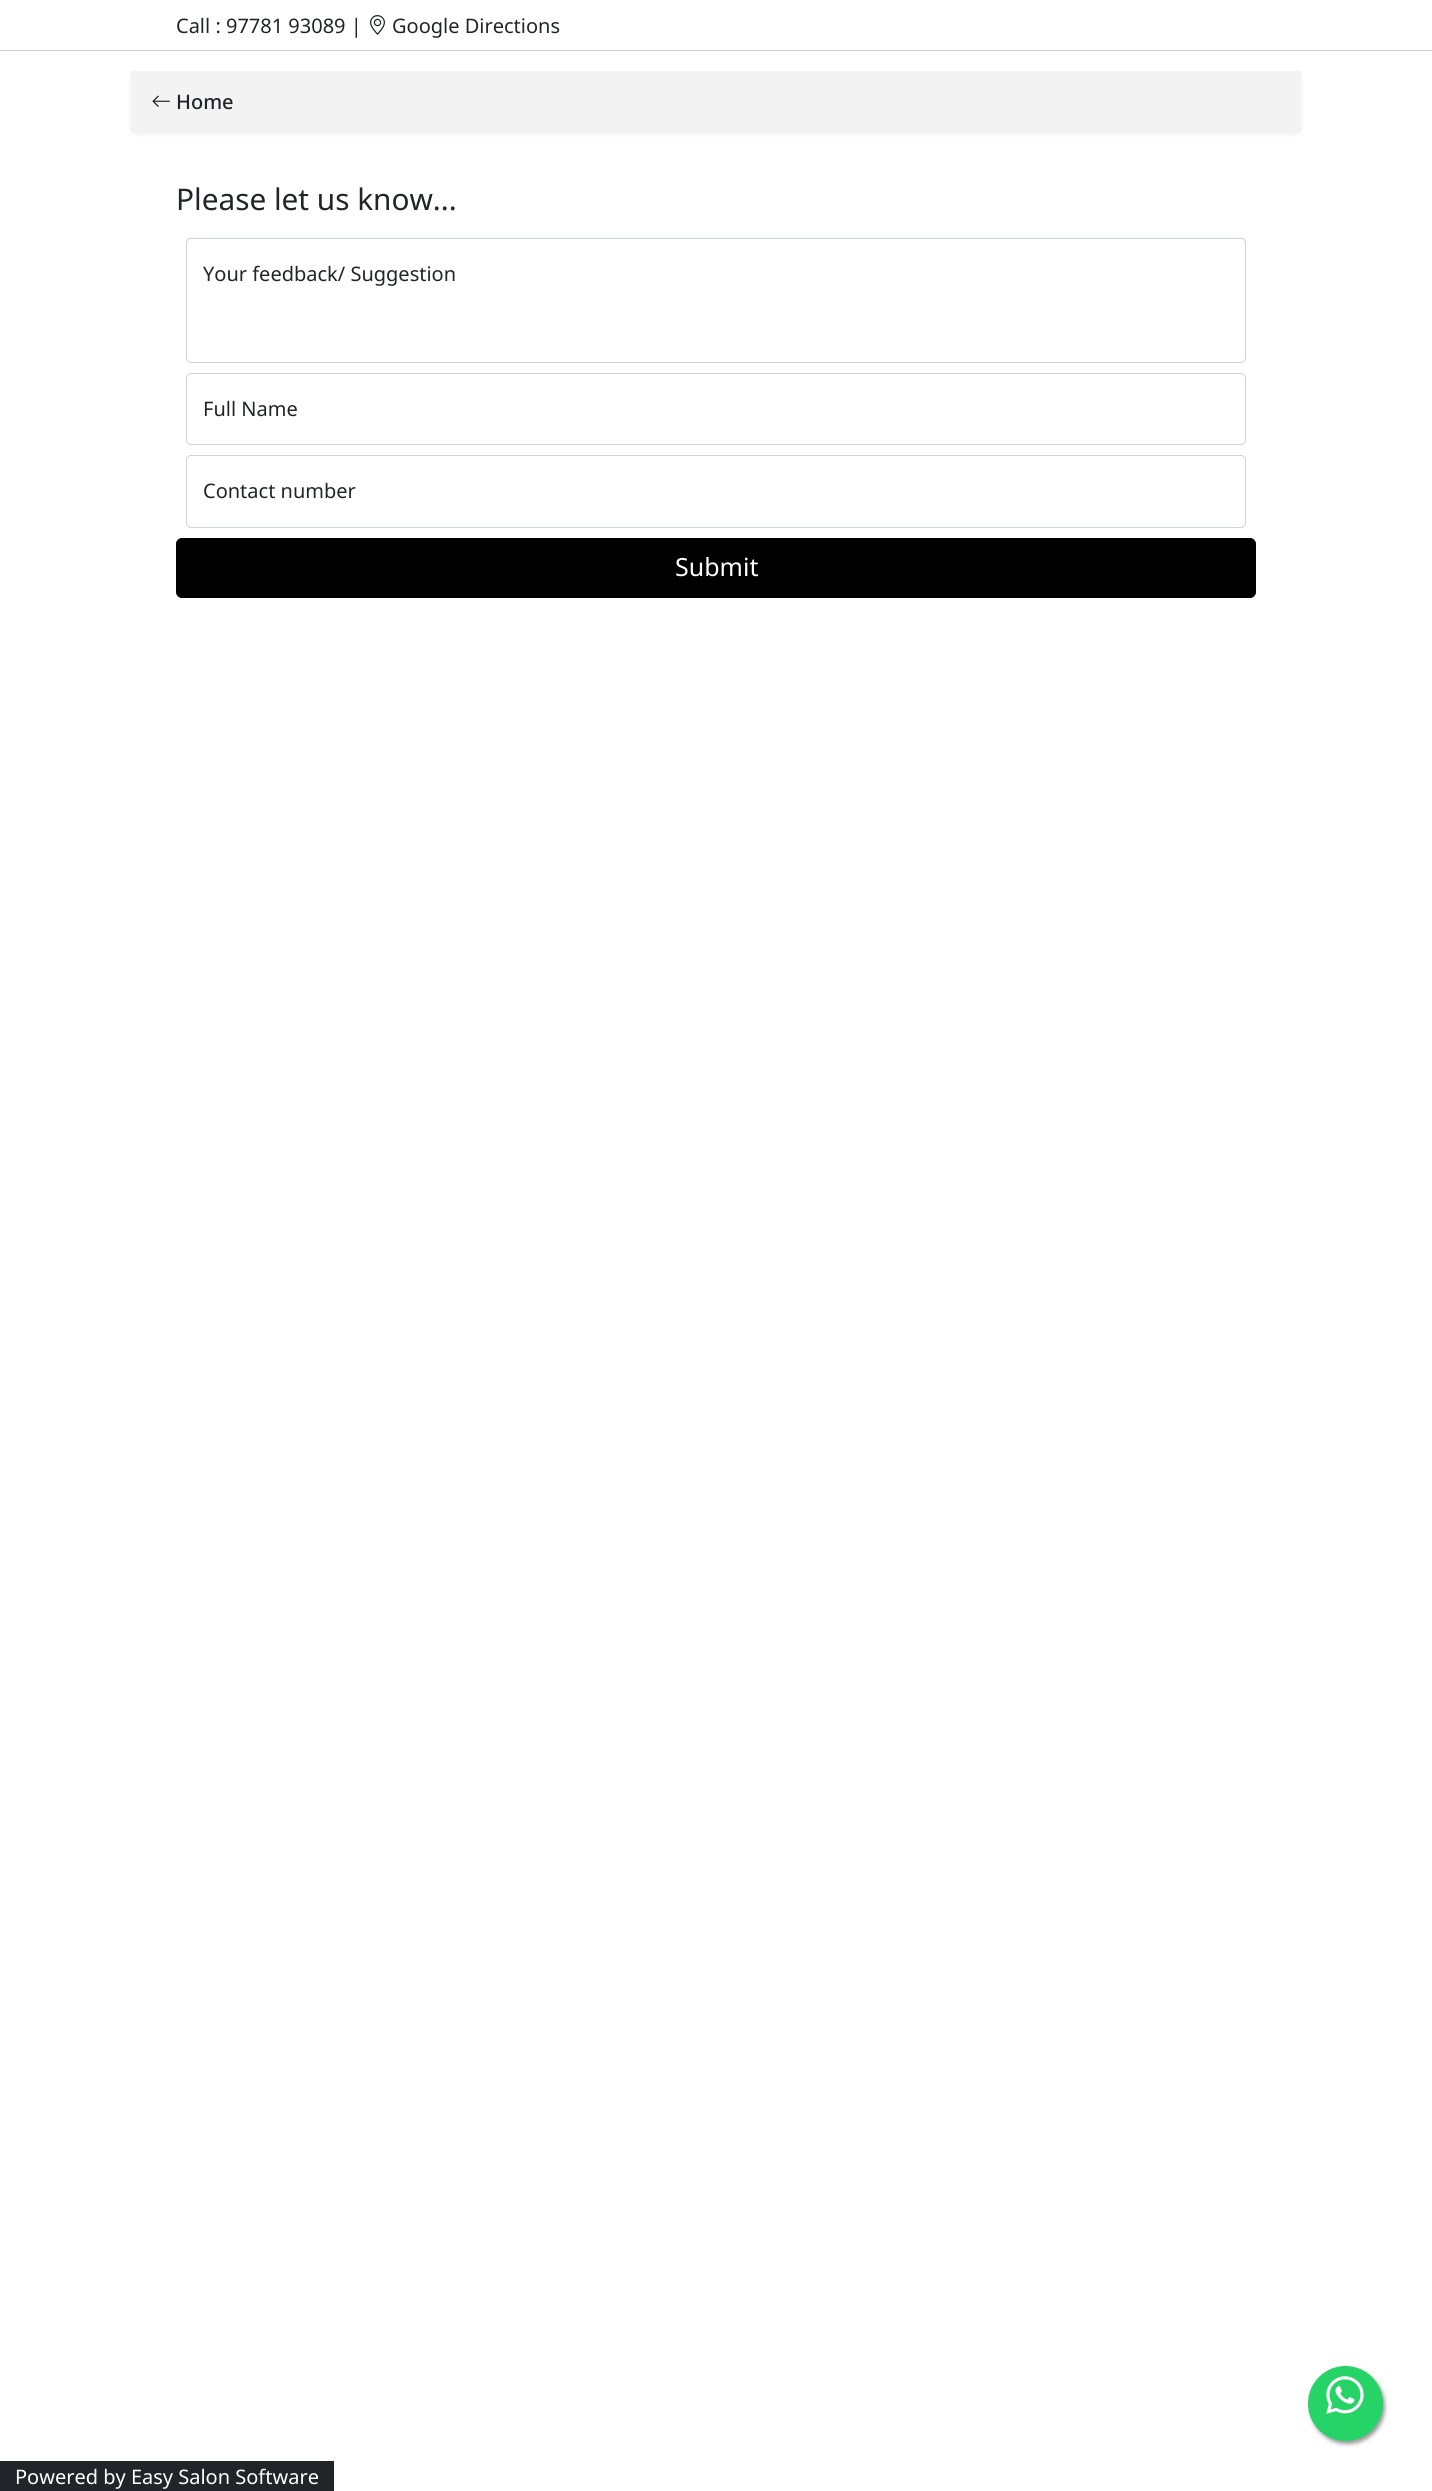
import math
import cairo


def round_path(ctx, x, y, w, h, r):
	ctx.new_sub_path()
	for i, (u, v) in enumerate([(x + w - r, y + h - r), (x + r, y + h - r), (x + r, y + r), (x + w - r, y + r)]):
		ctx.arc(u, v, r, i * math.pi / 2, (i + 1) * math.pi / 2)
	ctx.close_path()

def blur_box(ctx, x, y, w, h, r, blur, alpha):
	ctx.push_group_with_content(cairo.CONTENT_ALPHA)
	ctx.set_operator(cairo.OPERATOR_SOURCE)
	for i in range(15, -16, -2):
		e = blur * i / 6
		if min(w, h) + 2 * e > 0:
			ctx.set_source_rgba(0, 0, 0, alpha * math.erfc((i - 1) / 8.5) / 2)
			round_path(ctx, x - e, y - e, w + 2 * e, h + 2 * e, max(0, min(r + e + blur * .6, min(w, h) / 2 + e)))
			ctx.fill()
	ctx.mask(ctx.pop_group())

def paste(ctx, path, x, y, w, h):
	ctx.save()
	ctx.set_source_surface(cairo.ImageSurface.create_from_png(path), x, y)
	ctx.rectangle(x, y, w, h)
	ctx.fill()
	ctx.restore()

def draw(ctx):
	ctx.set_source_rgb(1, 1, 1)
	ctx.paint()
	ctx.set_source_rgb(0.8, 0.8, 0.8)
	ctx.rectangle(0, 50, 1432, 1)
	ctx.fill()
	ctx.select_font_face('Noto Sans')
	ctx.set_font_size(20)
	ctx.set_source_rgb(0.129, 0.145, 0.161)
	ctx.move_to(176, 33)
	ctx.show_text('Call : 97781 93089 |')
	paste(ctx, 'media/1.png', 370, 15, 15, 20)
	ctx.move_to(392, 33)
	ctx.show_text('Google Directions')
	ctx.save()
	ctx.set_fill_rule(cairo.FILL_RULE_EVEN_ODD)
	ctx.new_path()
	ctx.move_to(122, 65)
	ctx.line_to(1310, 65)
	ctx.line_to(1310, 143)
	ctx.line_to(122, 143)
	ctx.close_path()
	ctx.move_to(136, 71)
	ctx.line_to(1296, 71)
	ctx.curve_to(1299, 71, 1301, 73, 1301, 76)
	ctx.line_to(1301, 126)
	ctx.curve_to(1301, 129, 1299, 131, 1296, 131)
	ctx.line_to(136, 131)
	ctx.curve_to(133, 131, 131, 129, 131, 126)
	ctx.line_to(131, 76)
	ctx.curve_to(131, 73, 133, 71, 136, 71)
	ctx.close_path()
	ctx.clip()
	ctx.set_source_rgb(0, 0, 0)
	blur_box(ctx, 131, 74, 1170, 60, 5, 2.5, 0.07)
	ctx.restore()
	ctx.set_source_rgba(0, 0, 0, 0.05)
	ctx.rectangle(131, 71, 1170, 60)
	ctx.fill()
	paste(ctx, 'media/2.png', 152, 95, 18, 12)
	ctx.select_font_face('Noto Sans Medium')
	ctx.set_source_rgb(0.129, 0.145, 0.161)
	ctx.move_to(176, 109)
	ctx.show_text('Home')
	ctx.select_font_face('Noto Sans')
	ctx.set_font_size(29.75)
	ctx.move_to(176, 210)
	ctx.show_text('Please let us know...')
	round_path(ctx, 186.5, 238.5, 1059, 124, 4.5)
	ctx.set_source_rgb(0.808, 0.831, 0.855)
	ctx.set_line_width(1)
	ctx.stroke()
	ctx.set_font_size(20)
	ctx.set_source_rgb(0.129, 0.145, 0.161)
	ctx.move_to(203, 281)
	ctx.show_text('Your feedback/ Suggestion')
	round_path(ctx, 186.5, 373.5, 1059, 71, 4.5)
	ctx.set_source_rgb(0.808, 0.831, 0.855)
	ctx.stroke()
	ctx.set_source_rgb(0.129, 0.145, 0.161)
	ctx.move_to(203, 416)
	ctx.show_text('Full Name')
	round_path(ctx, 186.5, 455.5, 1059, 72, 4.5)
	ctx.set_source_rgb(0.808, 0.831, 0.855)
	ctx.stroke()
	ctx.set_source_rgb(0.129, 0.145, 0.161)
	ctx.move_to(203, 498)
	ctx.show_text('Contact number')
	ctx.set_source_rgb(0, 0, 0)
	round_path(ctx, 176.5, 538.5, 1079, 59, 5.5)
	ctx.fill_preserve()
	ctx.stroke()
	ctx.set_font_size(25)
	ctx.set_source_rgb(1, 1, 1)
	ctx.move_to(675, 576)
	ctx.show_text('Submit')
	ctx.set_source_rgb(0.6, 0.6, 0.6)
	blur_box(ctx, 1310, 2369, 75, 75, 37.5, 2, 1)
	ctx.set_source_rgb(0.145, 0.827, 0.4)
	ctx.arc(1345.5, 2403.5, 37.5, 0, 2 * math.pi)
	ctx.fill()
	paste(ctx, 'media/3.png', 1326, 2376, 38, 38)
	ctx.set_source_rgb(0.129, 0.145, 0.161)
	ctx.rectangle(0, 2461, 334, 30)
	ctx.fill()
	ctx.set_font_size(20)
	ctx.set_source_rgb(1, 1, 1)
	ctx.move_to(15, 2484)
	ctx.show_text('Powered by Easy Salon Software')


surface = cairo.ImageSurface(cairo.FORMAT_RGB24, 1432, 2491)
ctx = cairo.Context(surface)
options = cairo.FontOptions()
options.set_hint_metrics(cairo.HINT_METRICS_OFF)
options.set_hint_style(cairo.HINT_STYLE_NONE)
ctx.set_font_options(options)
ctx.set_miter_limit(4)
draw(ctx)
surface.write_to_png('image.png')
